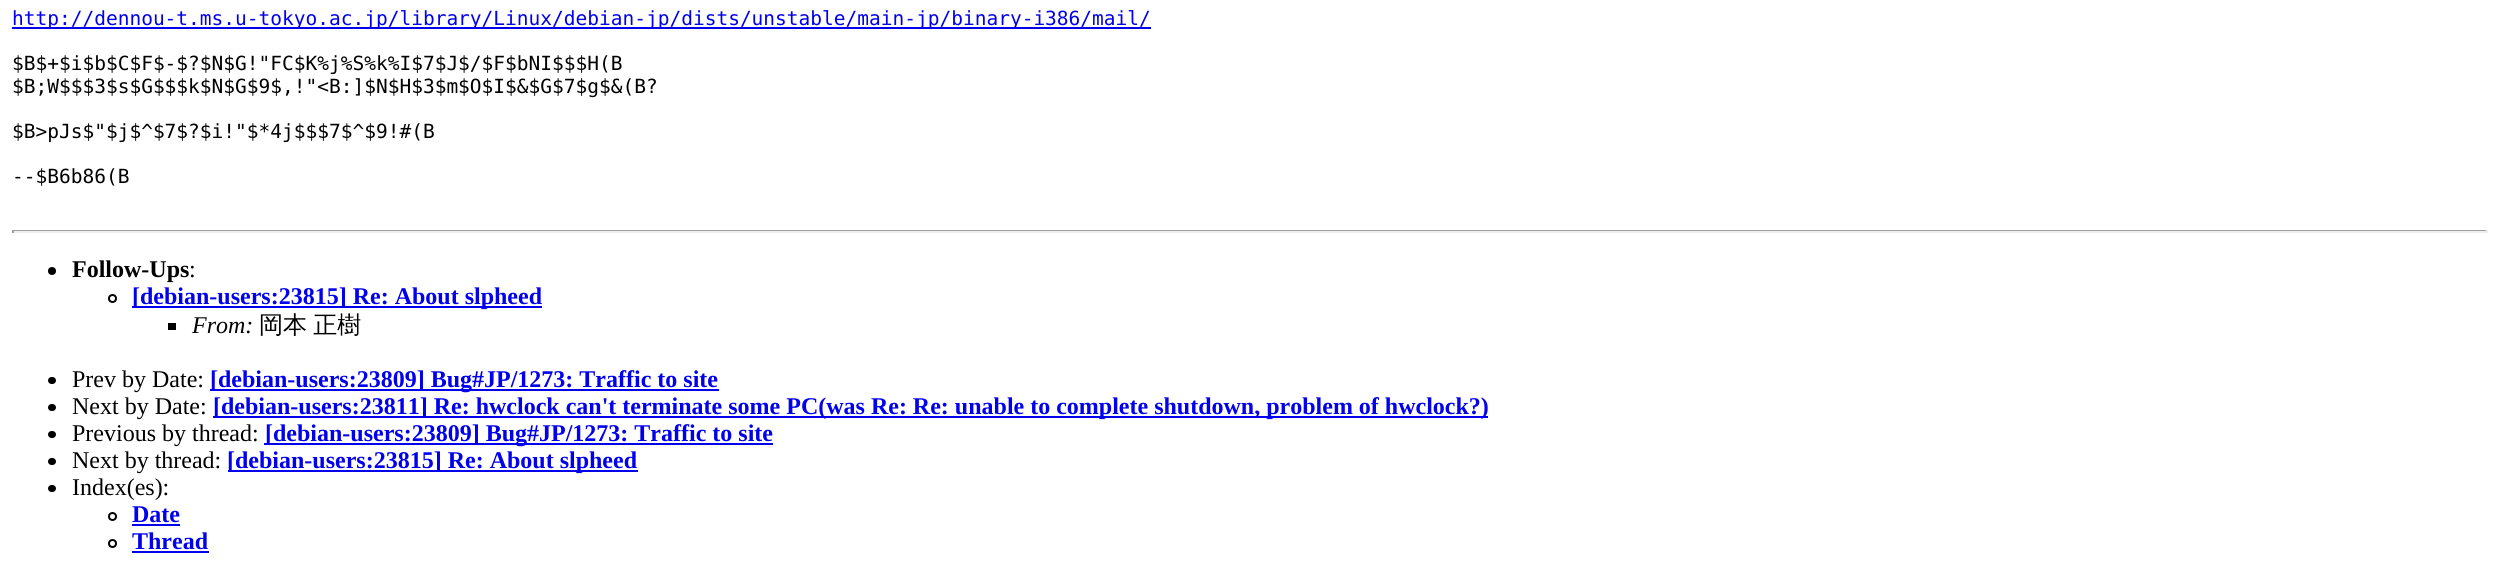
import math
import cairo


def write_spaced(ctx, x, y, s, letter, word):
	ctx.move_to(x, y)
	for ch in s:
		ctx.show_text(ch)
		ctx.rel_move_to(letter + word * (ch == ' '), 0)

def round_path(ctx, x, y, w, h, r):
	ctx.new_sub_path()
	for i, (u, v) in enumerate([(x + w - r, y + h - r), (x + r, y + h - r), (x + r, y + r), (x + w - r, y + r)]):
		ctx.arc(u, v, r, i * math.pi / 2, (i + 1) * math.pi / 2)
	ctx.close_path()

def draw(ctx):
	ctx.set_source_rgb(1, 1, 1)
	ctx.paint()
	ctx.set_source_rgb(0, 0, 0.933)
	ctx.rectangle(12, 27, 1139, 2)
	ctx.fill()
	ctx.select_font_face('DejaVu Sans Mono')
	ctx.set_font_size(19.5)
	ctx.move_to(12, 25)
	ctx.show_text('http://dennou-t.ms.u-tokyo.ac.jp/library/Linux/debian-jp/dists/unstable/main-jp/binary-i386/mail/')
	ctx.set_source_rgb(0, 0, 0)
	for x, y, s in [
		(12, 70, '$B$+$i$b$C$F$-$?$N$G!"FC$K%j%S%k%I$7$J$/$F$bNI$$$H(B'),
		(12, 93, '$B;W$$$3$s$G$$$k$N$G$9$,!"<B:]$N$H$3$m$O$I$&$G$7$g$&(B?'),
		(12, 138, '$B>pJs$"$j$^$7$?$i!"$*4j$$$7$^$9!#(B'),
		(12, 183, '--$B6b86(B'),
	]:
		ctx.move_to(x, y)
		ctx.show_text(s)
	ctx.set_source_rgb(0.624, 0.624, 0.624)
	ctx.rectangle(12, 230, 2475, 1)
	ctx.fill()
	ctx.set_source_rgb(0.933, 0.933, 0.933)
	ctx.rectangle(2486, 230, 2, 3)
	ctx.rectangle(12, 231, 2475, 2)
	ctx.fill()
	ctx.set_source_rgb(0.624, 0.624, 0.624)
	ctx.rectangle(12, 230, 2, 3)
	ctx.fill()
	ctx.set_source_rgb(0, 0, 0)
	ctx.arc(52, 271, 4, 0, 2 * math.pi)
	ctx.fill()
	ctx.select_font_face('Liberation Serif', cairo.FONT_SLANT_NORMAL, cairo.FONT_WEIGHT_BOLD)
	ctx.set_font_size(24)
	ctx.move_to(72, 277)
	ctx.show_text('Follow-Ups')
	ctx.select_font_face('Liberation Serif')
	ctx.move_to(189, 277)
	ctx.show_text(':')
	ctx.new_path()
	ctx.arc(112.5, 298.5, 3.5, 0, 2 * math.pi)
	ctx.stroke()
	ctx.set_source_rgb(0, 0, 0.933)
	ctx.rectangle(132, 306, 410, 2)
	ctx.fill()
	ctx.select_font_face('Liberation Serif', cairo.FONT_SLANT_NORMAL, cairo.FONT_WEIGHT_BOLD)
	ctx.move_to(132, 304)
	ctx.show_text('[debian-users:23815] Re: About slpheed')
	ctx.set_source_rgb(0, 0, 0)
	ctx.rectangle(168, 323, 8, 7)
	ctx.fill()
	ctx.select_font_face('Liberation Serif', cairo.FONT_SLANT_ITALIC)
	ctx.move_to(192, 333)
	ctx.show_text('From:')
	ctx.select_font_face('WenQuanYi Zen Hei Medium')
	write_spaced(ctx, 259, 333, '岡本 正樹', 0, -1)
	round_path(ctx, 48, 377, 8, 7, 3.5)
	ctx.fill()
	ctx.select_font_face('Liberation Serif')
	ctx.move_to(72, 387)
	ctx.show_text('Prev by Date:')
	ctx.set_source_rgb(0, 0, 0.933)
	ctx.rectangle(210, 389, 509, 2)
	ctx.fill()
	ctx.select_font_face('Liberation Serif', cairo.FONT_SLANT_NORMAL, cairo.FONT_WEIGHT_BOLD)
	ctx.move_to(210, 387)
	ctx.show_text('[debian-users:23809] Bug#JP/1273: Traffic to site')
	ctx.set_source_rgb(0, 0, 0)
	round_path(ctx, 48, 404, 8, 7, 3.5)
	ctx.fill()
	ctx.select_font_face('Liberation Serif')
	ctx.move_to(72, 414)
	ctx.show_text('Next by Date:')
	ctx.set_source_rgb(0, 0, 0.933)
	ctx.rectangle(213, 416, 1275, 2)
	ctx.fill()
	ctx.select_font_face('Liberation Serif', cairo.FONT_SLANT_NORMAL, cairo.FONT_WEIGHT_BOLD)
	ctx.move_to(213, 414)
	ctx.show_text('[debian-users:23811] Re: hwclock can\'t terminate some PC(was Re: Re: unable to complete shutdown, problem of hwclock?)')
	ctx.set_source_rgb(0, 0, 0)
	round_path(ctx, 48, 431, 8, 7, 3.5)
	ctx.fill()
	ctx.select_font_face('Liberation Serif')
	ctx.move_to(72, 441)
	ctx.show_text('Previous by thread:')
	ctx.set_source_rgb(0, 0, 0.933)
	ctx.rectangle(264, 443, 509, 2)
	ctx.fill()
	ctx.select_font_face('Liberation Serif', cairo.FONT_SLANT_NORMAL, cairo.FONT_WEIGHT_BOLD)
	ctx.move_to(265, 441)
	ctx.show_text('[debian-users:23809] Bug#JP/1273: Traffic to site')
	ctx.set_source_rgb(0, 0, 0)
	round_path(ctx, 48, 458, 8, 7, 3.5)
	ctx.fill()
	ctx.select_font_face('Liberation Serif')
	ctx.move_to(72, 468)
	ctx.show_text('Next by thread:')
	ctx.set_source_rgb(0, 0, 0.933)
	ctx.rectangle(228, 470, 410, 2)
	ctx.fill()
	ctx.select_font_face('Liberation Serif', cairo.FONT_SLANT_NORMAL, cairo.FONT_WEIGHT_BOLD)
	ctx.move_to(227, 468)
	ctx.show_text('[debian-users:23815] Re: About slpheed')
	ctx.set_source_rgb(0, 0, 0)
	round_path(ctx, 48, 485, 8, 7, 3.5)
	ctx.fill()
	ctx.select_font_face('Liberation Serif')
	ctx.move_to(72, 495)
	ctx.show_text('Index(es):')
	ctx.new_path()
	ctx.arc(112.5, 516.5, 3.5, 0, 2 * math.pi)
	ctx.stroke()
	ctx.select_font_face('Liberation Serif', cairo.FONT_SLANT_NORMAL, cairo.FONT_WEIGHT_BOLD)
	ctx.set_source_rgb(0, 0, 0.933)
	ctx.move_to(132, 522)
	ctx.show_text('Date')
	ctx.rectangle(132, 524, 48, 2)
	ctx.fill()
	ctx.arc(112.5, 543.5, 3.5, 0, 2 * math.pi)
	ctx.set_source_rgb(0, 0, 0)
	ctx.stroke()
	ctx.set_source_rgb(0, 0, 0.933)
	ctx.move_to(132, 549)
	ctx.show_text('Thread')
	ctx.rectangle(132, 551, 77, 2)
	ctx.fill()


surface = cairo.ImageSurface(cairo.FORMAT_RGB24, 2499, 567)
ctx = cairo.Context(surface)
options = cairo.FontOptions()
options.set_hint_metrics(cairo.HINT_METRICS_OFF)
options.set_hint_style(cairo.HINT_STYLE_NONE)
ctx.set_font_options(options)
ctx.set_miter_limit(4)
draw(ctx)
surface.write_to_png('image.png')
